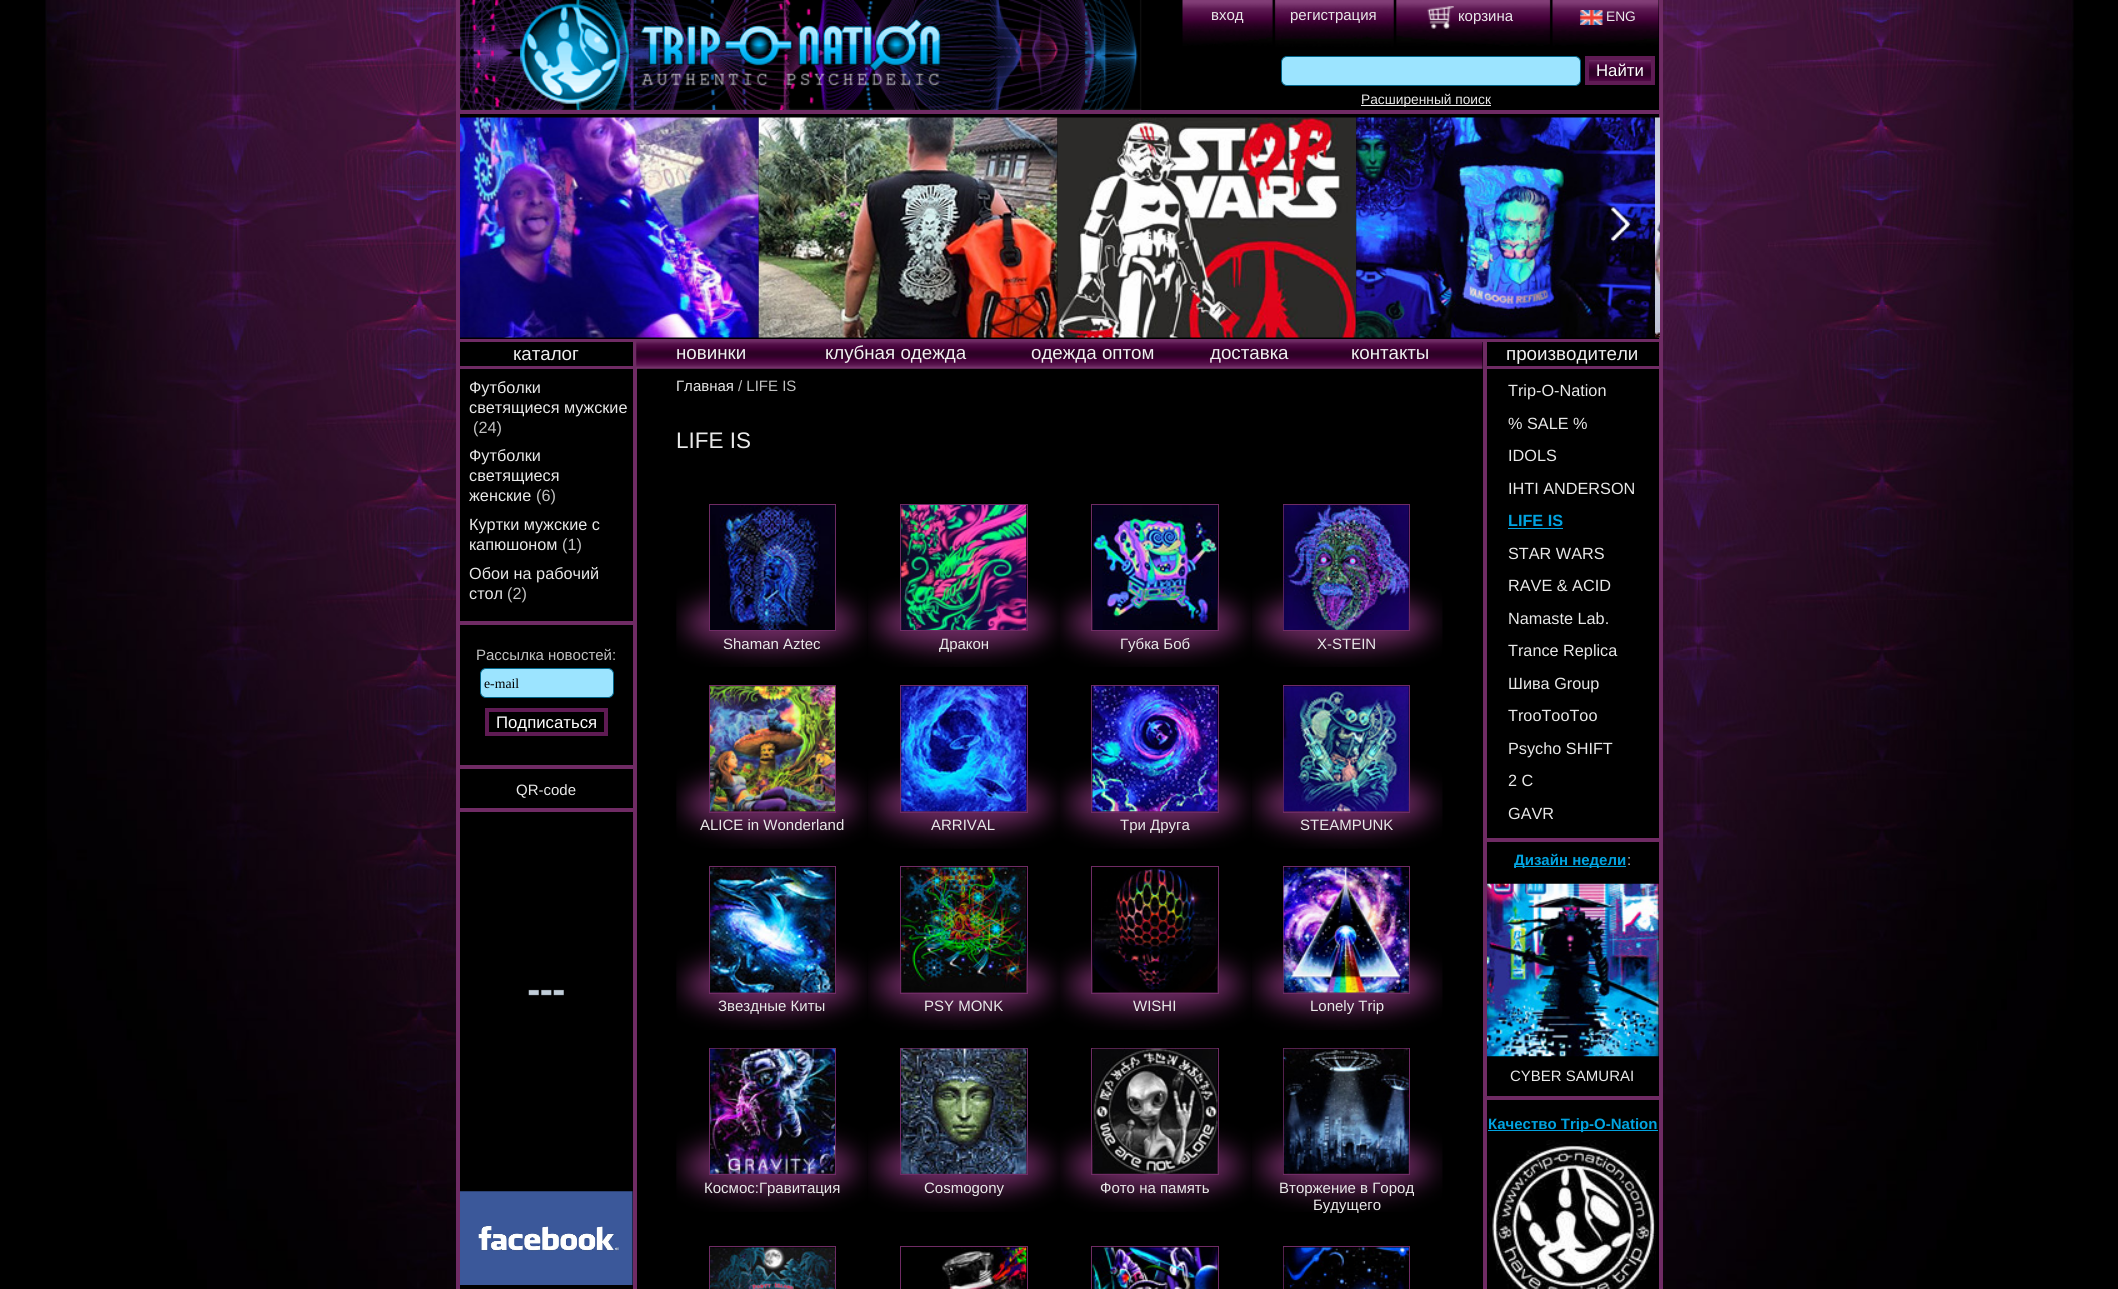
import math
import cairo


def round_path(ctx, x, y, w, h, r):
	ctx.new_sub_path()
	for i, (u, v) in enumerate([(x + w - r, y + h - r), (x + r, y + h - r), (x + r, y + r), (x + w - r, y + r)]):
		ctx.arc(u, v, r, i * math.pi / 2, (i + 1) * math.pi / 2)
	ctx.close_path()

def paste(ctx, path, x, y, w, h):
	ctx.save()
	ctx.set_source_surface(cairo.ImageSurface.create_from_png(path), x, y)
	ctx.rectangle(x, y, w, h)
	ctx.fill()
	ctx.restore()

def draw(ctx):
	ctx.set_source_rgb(0, 0, 0)
	ctx.paint()
	paste(ctx, 'media/1.png', 45, 0, 2029, 1289)
	ctx.set_source_rgb(0, 0, 0)
	ctx.rectangle(460, 0, 1199, 1289)
	ctx.fill()
	ctx.set_source_rgb(0.435, 0.169, 0.392)
	ctx.rectangle(1659, 0, 4, 1289)
	ctx.rectangle(456, 0, 4, 1289)
	ctx.rectangle(460, 110, 1199, 4)
	ctx.fill()
	paste(ctx, 'media/2.png', 460, 0, 60, 110)
	paste(ctx, 'media/3.png', 520, 0, 420, 110)
	paste(ctx, 'media/4.png', 940, 0, 719, 110)
	ctx.select_font_face('Liberation Sans')
	ctx.set_font_size(15)
	ctx.set_source_rgb(0.914, 0.914, 0.914)
	ctx.move_to(1211, 20)
	ctx.show_text('вход')
	ctx.move_to(1290, 20)
	ctx.show_text('регистрация')
	paste(ctx, 'media/5.png', 1427, 6, 27, 23)
	ctx.move_to(1458, 21)
	ctx.show_text('корзина')
	paste(ctx, 'media/6.png', 1580, 10, 23, 15)
	ctx.set_font_size(13.75)
	ctx.move_to(1606, 21)
	ctx.show_text('ENG')
	ctx.set_source_rgb(0.612, 0.894, 1)
	round_path(ctx, 1281.5, 56.5, 299, 29, 5.5)
	ctx.fill_preserve()
	ctx.set_source_rgb(0.004, 0.392, 0.537)
	ctx.set_line_width(1)
	ctx.stroke()
	paste(ctx, 'media/7.png', 1589, 60, 62, 21)
	ctx.rectangle(1587, 58, 66, 25)
	ctx.set_source_rgb(0.373, 0.106, 0.329)
	ctx.set_line_width(4)
	ctx.stroke()
	ctx.set_font_size(16.75)
	ctx.set_source_rgb(1, 1, 1)
	ctx.move_to(1596, 76)
	ctx.show_text('Найти')
	ctx.set_source_rgb(0.933, 0.933, 0.933)
	ctx.rectangle(1361, 105, 130, 1)
	ctx.fill()
	ctx.set_font_size(13.75)
	ctx.set_source_rgb(0.914, 0.914, 0.914)
	ctx.move_to(1361, 104)
	ctx.show_text('Расширенный поиск')
	ctx.set_source_rgb(0.435, 0.169, 0.392)
	ctx.rectangle(460, 339, 1199, 3)
	ctx.fill()
	paste(ctx, 'media/8.png', 460, 117, 299, 221)
	paste(ctx, 'media/9.png', 758, 117, 300, 221)
	paste(ctx, 'media/10.png', 1057, 117, 300, 221)
	paste(ctx, 'media/11.png', 1356, 117, 299, 221)
	paste(ctx, 'media/12.png', 1655, 117, 5, 221)
	paste(ctx, 'media/13.png', 1610, 205, 22, 37)
	ctx.rectangle(460, 366, 173, 3)
	ctx.fill()
	ctx.set_font_size(18.75)
	ctx.set_source_rgb(0.941, 0.941, 0.941)
	ctx.move_to(513, 360)
	ctx.show_text('каталог')
	ctx.set_font_size(16.25)
	ctx.set_source_rgb(0.914, 0.914, 0.914)
	ctx.move_to(469, 393)
	ctx.show_text('Футболки')
	ctx.move_to(469, 413)
	ctx.show_text('светящиеся мужские')
	ctx.set_source_rgb(0.761, 0.761, 0.761)
	ctx.move_to(473, 433)
	ctx.show_text('(24)')
	ctx.set_source_rgb(0.914, 0.914, 0.914)
	for x, y, s in [
		(469, 461, 'Футболки'),
		(469, 481, 'светящиеся'),
		(469, 501, 'женские'),
	]:
		ctx.move_to(x, y)
		ctx.show_text(s)
	ctx.set_source_rgb(0.761, 0.761, 0.761)
	ctx.move_to(536, 501)
	ctx.show_text('(6)')
	ctx.set_source_rgb(0.914, 0.914, 0.914)
	ctx.move_to(469, 530)
	ctx.show_text('Куртки мужские с')
	ctx.move_to(469, 550)
	ctx.show_text('капюшоном')
	ctx.set_source_rgb(0.761, 0.761, 0.761)
	ctx.move_to(562, 550)
	ctx.show_text('(1)')
	ctx.set_source_rgb(0.914, 0.914, 0.914)
	ctx.move_to(469, 579)
	ctx.show_text('Обои на рабочий')
	ctx.move_to(469, 599)
	ctx.show_text('стол')
	ctx.set_source_rgb(0.761, 0.761, 0.761)
	ctx.move_to(507, 599)
	ctx.show_text('(2)')
	ctx.set_source_rgb(0.435, 0.169, 0.392)
	ctx.rectangle(460, 621, 173, 4)
	ctx.fill()
	ctx.set_font_size(15)
	ctx.set_source_rgb(0.761, 0.761, 0.761)
	ctx.move_to(476, 660)
	ctx.show_text('Рассылка новостей:')
	ctx.set_source_rgb(0.612, 0.894, 1)
	round_path(ctx, 480.5, 668.5, 133, 29, 5.5)
	ctx.fill_preserve()
	ctx.set_source_rgb(0.004, 0.392, 0.537)
	ctx.set_line_width(1)
	ctx.stroke()
	ctx.select_font_face('Liberation Serif')
	ctx.set_font_size(13.75)
	ctx.set_source_rgb(0, 0, 0)
	ctx.move_to(484, 688)
	ctx.show_text('e-mail')
	ctx.rectangle(487, 710, 119, 24)
	ctx.set_source_rgb(0.373, 0.106, 0.329)
	ctx.set_line_width(4)
	ctx.stroke()
	ctx.select_font_face('Liberation Sans')
	ctx.set_font_size(16.75)
	ctx.set_source_rgb(1, 1, 1)
	ctx.move_to(496, 728)
	ctx.show_text('Подписаться')
	ctx.set_source_rgb(0.435, 0.169, 0.392)
	ctx.rectangle(460, 765, 173, 4)
	ctx.fill()
	ctx.set_font_size(15)
	ctx.set_source_rgb(0.914, 0.914, 0.914)
	ctx.move_to(516, 795)
	ctx.show_text('QR-code')
	ctx.set_source_rgb(0.435, 0.169, 0.392)
	ctx.rectangle(460, 808, 173, 4)
	ctx.fill()
	paste(ctx, 'media/14.png', 528, 989, 36, 7)
	paste(ctx, 'media/15.png', 460, 1191, 173, 94)
	ctx.rectangle(633, 341, 4, 948)
	ctx.rectangle(1486, 366, 173, 3)
	ctx.rectangle(1486, 838, 173, 4)
	ctx.rectangle(1486, 1096, 173, 4)
	ctx.rectangle(1483, 341, 4, 948)
	ctx.fill()
	paste(ctx, 'media/16.png', 636, 341, 847, 28)
	ctx.set_font_size(18.75)
	ctx.set_source_rgb(0.941, 0.941, 0.941)
	for x, y, s in [
		(676, 359, 'новинки'),
		(825, 359, 'клубная одежда'),
		(1031, 359, 'одежда оптом'),
		(1210, 359, 'доставка'),
		(1351, 359, 'контакты'),
	]:
		ctx.move_to(x, y)
		ctx.show_text(s)
	ctx.set_font_size(15)
	ctx.set_source_rgb(0.914, 0.914, 0.914)
	ctx.move_to(676, 391)
	ctx.show_text('Главная')
	ctx.set_source_rgb(0.761, 0.761, 0.761)
	ctx.move_to(738, 391)
	ctx.show_text('/ LIFE IS')
	ctx.set_font_size(22.5)
	ctx.set_source_rgb(0.914, 0.914, 0.914)
	ctx.move_to(676, 448)
	ctx.show_text('LIFE IS')
	paste(ctx, 'media/17.png', 676, 577, 192, 90)
	ctx.rectangle(709.5, 504.5, 126, 126)
	ctx.set_source_rgb(0.435, 0.169, 0.392)
	ctx.set_line_width(1)
	ctx.stroke()
	paste(ctx, 'media/18.png', 710, 505, 125, 125)
	ctx.set_font_size(15)
	ctx.set_source_rgb(0.914, 0.914, 0.914)
	ctx.move_to(723, 649)
	ctx.show_text('Shaman Aztec')
	paste(ctx, 'media/19.png', 867, 577, 193, 90)
	ctx.rectangle(900.5, 504.5, 127, 126)
	ctx.set_source_rgb(0.435, 0.169, 0.392)
	ctx.stroke()
	paste(ctx, 'media/20.png', 901, 505, 126, 125)
	ctx.set_source_rgb(0.914, 0.914, 0.914)
	ctx.move_to(939, 649)
	ctx.show_text('Дракон')
	paste(ctx, 'media/21.png', 1060, 577, 191, 90)
	ctx.rectangle(1091.5, 504.5, 127, 126)
	ctx.set_source_rgb(0.435, 0.169, 0.392)
	ctx.stroke()
	paste(ctx, 'media/22.png', 1092, 505, 126, 125)
	ctx.set_source_rgb(0.914, 0.914, 0.914)
	ctx.move_to(1120, 649)
	ctx.show_text('Губка Боб')
	paste(ctx, 'media/17.png', 1251, 577, 192, 90)
	ctx.rectangle(1283.5, 504.5, 126, 126)
	ctx.set_source_rgb(0.435, 0.169, 0.392)
	ctx.stroke()
	paste(ctx, 'media/23.png', 1283, 505, 126, 125)
	ctx.set_source_rgb(0.914, 0.914, 0.914)
	ctx.move_to(1317, 649)
	ctx.show_text('X-STEIN')
	paste(ctx, 'media/24.png', 676, 758, 192, 91)
	ctx.rectangle(709.5, 685.5, 126, 127)
	ctx.set_source_rgb(0.435, 0.169, 0.392)
	ctx.stroke()
	paste(ctx, 'media/25.png', 710, 686, 125, 126)
	ctx.set_source_rgb(0.914, 0.914, 0.914)
	ctx.move_to(700, 830)
	ctx.show_text('ALICE in Wonderland')
	paste(ctx, 'media/26.png', 867, 758, 193, 91)
	ctx.rectangle(900.5, 685.5, 127, 127)
	ctx.set_source_rgb(0.435, 0.169, 0.392)
	ctx.stroke()
	paste(ctx, 'media/27.png', 901, 686, 126, 126)
	ctx.set_source_rgb(0.914, 0.914, 0.914)
	ctx.move_to(931, 830)
	ctx.show_text('ARRIVAL')
	paste(ctx, 'media/28.png', 1060, 758, 191, 91)
	ctx.rectangle(1091.5, 685.5, 127, 127)
	ctx.set_source_rgb(0.435, 0.169, 0.392)
	ctx.stroke()
	paste(ctx, 'media/29.png', 1092, 686, 126, 126)
	ctx.set_source_rgb(0.914, 0.914, 0.914)
	ctx.move_to(1120, 830)
	ctx.show_text('Три Друга')
	paste(ctx, 'media/24.png', 1251, 758, 192, 91)
	ctx.rectangle(1283.5, 685.5, 126, 127)
	ctx.set_source_rgb(0.435, 0.169, 0.392)
	ctx.stroke()
	paste(ctx, 'media/30.png', 1283, 686, 126, 126)
	ctx.set_source_rgb(0.914, 0.914, 0.914)
	ctx.move_to(1300, 830)
	ctx.show_text('STEAMPUNK')
	paste(ctx, 'media/31.png', 676, 939, 192, 91)
	ctx.rectangle(709.5, 866.5, 126, 127)
	ctx.set_source_rgb(0.435, 0.169, 0.392)
	ctx.stroke()
	paste(ctx, 'media/32.png', 710, 867, 125, 126)
	ctx.set_source_rgb(0.914, 0.914, 0.914)
	ctx.move_to(718, 1011)
	ctx.show_text('Звездные Киты')
	paste(ctx, 'media/33.png', 867, 939, 193, 91)
	ctx.rectangle(900.5, 866.5, 127, 127)
	ctx.set_source_rgb(0.435, 0.169, 0.392)
	ctx.stroke()
	paste(ctx, 'media/34.png', 901, 867, 126, 126)
	ctx.set_source_rgb(0.914, 0.914, 0.914)
	ctx.move_to(924, 1011)
	ctx.show_text('PSY MONK')
	paste(ctx, 'media/35.png', 1060, 939, 191, 91)
	ctx.rectangle(1091.5, 866.5, 127, 127)
	ctx.set_source_rgb(0.435, 0.169, 0.392)
	ctx.stroke()
	paste(ctx, 'media/36.png', 1092, 868, 126, 125)
	ctx.set_source_rgb(0.914, 0.914, 0.914)
	ctx.move_to(1133, 1011)
	ctx.show_text('WISHI')
	paste(ctx, 'media/31.png', 1251, 939, 192, 91)
	ctx.rectangle(1283.5, 866.5, 126, 127)
	ctx.set_source_rgb(0.435, 0.169, 0.392)
	ctx.stroke()
	paste(ctx, 'media/37.png', 1283, 867, 126, 126)
	ctx.set_source_rgb(0.914, 0.914, 0.914)
	ctx.move_to(1310, 1011)
	ctx.show_text('Lonely Trip')
	paste(ctx, 'media/38.png', 676, 1121, 192, 91)
	ctx.rectangle(709.5, 1048.5, 126, 126)
	ctx.set_source_rgb(0.435, 0.169, 0.392)
	ctx.stroke()
	paste(ctx, 'media/39.png', 710, 1048, 125, 126)
	ctx.set_source_rgb(0.914, 0.914, 0.914)
	ctx.move_to(704, 1193)
	ctx.show_text('Космос:Гравитация')
	paste(ctx, 'media/40.png', 867, 1121, 193, 91)
	ctx.rectangle(900.5, 1048.5, 127, 126)
	ctx.set_source_rgb(0.435, 0.169, 0.392)
	ctx.stroke()
	paste(ctx, 'media/41.png', 901, 1048, 126, 126)
	ctx.set_source_rgb(0.914, 0.914, 0.914)
	ctx.move_to(924, 1193)
	ctx.show_text('Cosmogony')
	paste(ctx, 'media/42.png', 1060, 1121, 191, 91)
	ctx.rectangle(1091.5, 1048.5, 127, 126)
	ctx.set_source_rgb(0.435, 0.169, 0.392)
	ctx.stroke()
	paste(ctx, 'media/43.png', 1092, 1048, 126, 126)
	ctx.set_source_rgb(0.914, 0.914, 0.914)
	ctx.move_to(1100, 1193)
	ctx.show_text('Фото на память')
	paste(ctx, 'media/38.png', 1251, 1121, 192, 91)
	ctx.rectangle(1283.5, 1048.5, 126, 126)
	ctx.set_source_rgb(0.435, 0.169, 0.392)
	ctx.stroke()
	paste(ctx, 'media/44.png', 1283, 1048, 126, 126)
	ctx.set_source_rgb(0.914, 0.914, 0.914)
	ctx.move_to(1279, 1193)
	ctx.show_text('Вторжение в Город')
	ctx.move_to(1313, 1210)
	ctx.show_text('Будущего')
	ctx.rectangle(709.5, 1246.5, 126, 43)
	ctx.set_source_rgb(0.435, 0.169, 0.392)
	ctx.stroke()
	paste(ctx, 'media/45.png', 710, 1247, 125, 42)
	ctx.rectangle(900.5, 1246.5, 127, 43)
	ctx.stroke()
	paste(ctx, 'media/46.png', 941, 1247, 86, 42)
	ctx.rectangle(1091.5, 1246.5, 127, 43)
	ctx.stroke()
	paste(ctx, 'media/47.png', 1092, 1247, 126, 42)
	ctx.rectangle(1283.5, 1246.5, 126, 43)
	ctx.stroke()
	paste(ctx, 'media/48.png', 1283, 1247, 126, 42)
	ctx.set_font_size(18.75)
	ctx.set_source_rgb(0.941, 0.941, 0.941)
	ctx.move_to(1506, 360)
	ctx.show_text('производители')
	ctx.set_font_size(16.25)
	ctx.set_source_rgb(0.914, 0.914, 0.914)
	for x, y, s in [
		(1508, 396, 'Trip-O-Nation'),
		(1508, 429, '% SALE %'),
		(1508, 461, 'IDOLS'),
		(1508, 494, 'IHTI ANDERSON'),
	]:
		ctx.move_to(x, y)
		ctx.show_text(s)
	ctx.select_font_face('Liberation Sans', cairo.FONT_SLANT_NORMAL, cairo.FONT_WEIGHT_BOLD)
	ctx.set_source_rgb(0.004, 0.639, 0.878)
	ctx.move_to(1508, 526)
	ctx.show_text('LIFE IS')
	ctx.rectangle(1508, 528, 55, 1)
	ctx.fill()
	ctx.select_font_face('Liberation Sans')
	ctx.set_source_rgb(0.914, 0.914, 0.914)
	for x, y, s in [
		(1508, 559, 'STAR WARS'),
		(1508, 591, 'RAVE & ACID'),
		(1508, 624, 'Namaste Lab.'),
		(1508, 656, 'Trance Replica'),
		(1508, 689, 'Шива Group'),
		(1508, 721, 'TrooTooToo'),
		(1508, 754, 'Psycho SHIFT'),
		(1508, 786, '2 C'),
		(1508, 819, 'GAVR'),
	]:
		ctx.move_to(x, y)
		ctx.show_text(s)
	ctx.set_source_rgb(0.004, 0.639, 0.878)
	ctx.rectangle(1514, 866, 112, 1)
	ctx.fill()
	ctx.select_font_face('Liberation Sans', cairo.FONT_SLANT_NORMAL, cairo.FONT_WEIGHT_BOLD)
	ctx.set_font_size(15)
	ctx.move_to(1514, 865)
	ctx.show_text('Дизайн недели')
	ctx.select_font_face('Liberation Sans')
	ctx.set_source_rgb(0.761, 0.761, 0.761)
	ctx.move_to(1627, 865)
	ctx.show_text(':')
	paste(ctx, 'media/49.png', 1487, 883, 172, 174)
	ctx.set_source_rgb(0.914, 0.914, 0.914)
	ctx.move_to(1510, 1081)
	ctx.show_text('CYBER SAMURAI')
	ctx.set_source_rgb(0.004, 0.639, 0.878)
	ctx.rectangle(1488, 1130, 170, 1)
	ctx.fill()
	ctx.select_font_face('Liberation Sans', cairo.FONT_SLANT_NORMAL, cairo.FONT_WEIGHT_BOLD)
	ctx.move_to(1488, 1129)
	ctx.show_text('Качество Trip-O-Nation')
	paste(ctx, 'media/50.png', 1488, 1140, 168, 149)


surface = cairo.ImageSurface(cairo.FORMAT_RGB24, 2118, 1289)
ctx = cairo.Context(surface)
options = cairo.FontOptions()
options.set_hint_metrics(cairo.HINT_METRICS_OFF)
options.set_hint_style(cairo.HINT_STYLE_NONE)
ctx.set_font_options(options)
ctx.set_miter_limit(4)
draw(ctx)
surface.write_to_png('image.png')
